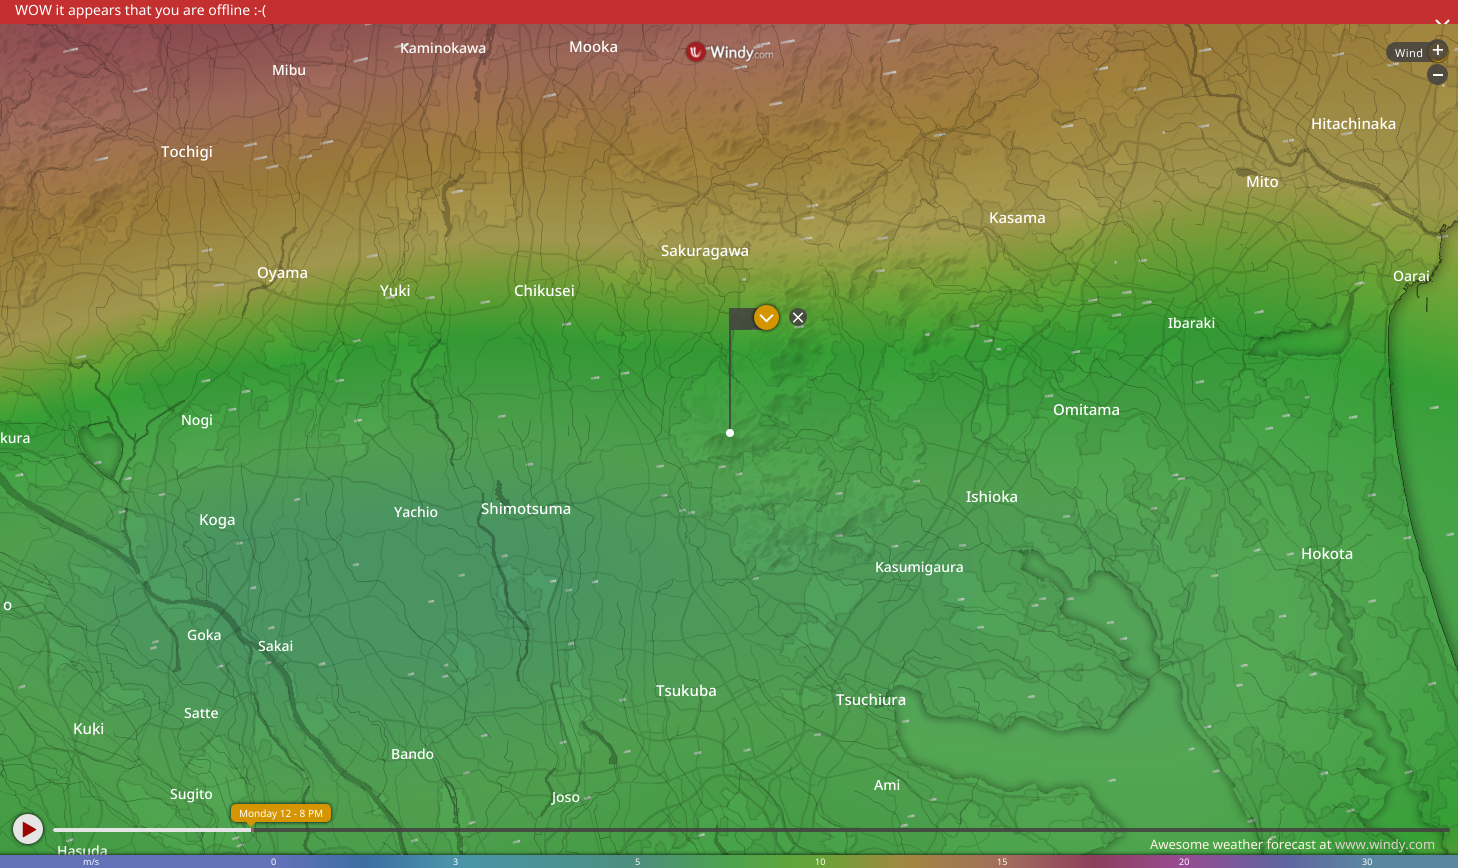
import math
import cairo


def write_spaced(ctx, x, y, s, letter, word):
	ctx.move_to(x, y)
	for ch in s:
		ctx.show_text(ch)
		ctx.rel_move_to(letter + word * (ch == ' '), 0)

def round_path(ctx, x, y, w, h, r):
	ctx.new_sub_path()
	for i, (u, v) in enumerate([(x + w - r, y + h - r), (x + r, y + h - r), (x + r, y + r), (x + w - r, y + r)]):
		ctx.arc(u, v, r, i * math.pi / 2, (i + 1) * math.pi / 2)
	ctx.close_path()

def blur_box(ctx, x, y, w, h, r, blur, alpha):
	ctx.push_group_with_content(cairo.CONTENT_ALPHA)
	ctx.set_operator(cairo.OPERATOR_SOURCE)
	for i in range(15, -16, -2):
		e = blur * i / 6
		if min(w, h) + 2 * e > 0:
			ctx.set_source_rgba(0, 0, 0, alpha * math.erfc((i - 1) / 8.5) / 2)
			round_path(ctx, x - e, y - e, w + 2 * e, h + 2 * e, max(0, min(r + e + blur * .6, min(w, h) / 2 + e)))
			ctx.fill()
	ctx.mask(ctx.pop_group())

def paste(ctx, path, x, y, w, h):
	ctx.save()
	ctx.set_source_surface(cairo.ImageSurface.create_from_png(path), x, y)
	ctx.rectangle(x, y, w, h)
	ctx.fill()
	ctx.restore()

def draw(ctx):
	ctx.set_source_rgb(1, 1, 1)
	ctx.paint()
	ctx.set_source_rgb(0.769, 0.184, 0.184)
	ctx.rectangle(0, 0, 1458, 24)
	ctx.fill()
	ctx.select_font_face('Noto Sans')
	ctx.set_font_size(14)
	ctx.set_source_rgb(1, 1, 1)
	ctx.move_to(15, 15)
	ctx.show_text('WOW it appears that you are offline :-(')
	paste(ctx, 'media/1.png', 1435, 19, 15, 5)
	paste(ctx, 'media/2.png', 0, 24, 205, 248)
	paste(ctx, 'media/3.png', 205, 24, 256, 248)
	paste(ctx, 'media/4.png', 461, 24, 256, 248)
	paste(ctx, 'media/5.png', 717, 24, 256, 248)
	paste(ctx, 'media/6.png', 973, 24, 256, 248)
	paste(ctx, 'media/7.png', 1229, 24, 229, 248)
	paste(ctx, 'media/8.png', 0, 272, 205, 256)
	paste(ctx, 'media/9.png', 205, 272, 256, 256)
	paste(ctx, 'media/10.png', 461, 272, 256, 256)
	paste(ctx, 'media/11.png', 717, 272, 256, 256)
	paste(ctx, 'media/12.png', 973, 272, 256, 256)
	paste(ctx, 'media/13.png', 1229, 272, 229, 256)
	paste(ctx, 'media/14.png', 0, 528, 205, 256)
	paste(ctx, 'media/15.png', 205, 528, 256, 256)
	paste(ctx, 'media/16.png', 461, 528, 256, 256)
	paste(ctx, 'media/17.png', 717, 528, 256, 256)
	paste(ctx, 'media/18.png', 973, 528, 256, 256)
	paste(ctx, 'media/19.png', 1229, 528, 229, 256)
	paste(ctx, 'media/20.png', 0, 784, 205, 71)
	paste(ctx, 'media/21.png', 205, 784, 256, 71)
	paste(ctx, 'media/22.png', 461, 784, 256, 71)
	paste(ctx, 'media/23.png', 717, 784, 256, 71)
	paste(ctx, 'media/24.png', 973, 784, 256, 71)
	paste(ctx, 'media/25.png', 1229, 784, 229, 71)
	paste(ctx, 'media/50.png', 15, 24, 1443, 831)
	paste(ctx, 'media/26.png', 0, 24, 205, 248)
	paste(ctx, 'media/27.png', 205, 24, 256, 248)
	paste(ctx, 'media/28.png', 461, 24, 256, 248)
	paste(ctx, 'media/29.png', 717, 24, 256, 248)
	paste(ctx, 'media/30.png', 973, 24, 256, 248)
	paste(ctx, 'media/31.png', 1229, 24, 229, 248)
	paste(ctx, 'media/32.png', 0, 272, 205, 256)
	paste(ctx, 'media/33.png', 205, 272, 256, 256)
	paste(ctx, 'media/34.png', 461, 272, 256, 256)
	paste(ctx, 'media/35.png', 717, 272, 256, 256)
	paste(ctx, 'media/36.png', 973, 272, 256, 256)
	paste(ctx, 'media/37.png', 1229, 272, 218, 256)
	paste(ctx, 'media/38.png', 0, 528, 205, 256)
	paste(ctx, 'media/39.png', 205, 528, 256, 256)
	paste(ctx, 'media/40.png', 461, 528, 256, 256)
	paste(ctx, 'media/41.png', 717, 528, 256, 256)
	paste(ctx, 'media/42.png', 973, 528, 256, 256)
	paste(ctx, 'media/43.png', 1229, 528, 229, 256)
	paste(ctx, 'media/44.png', 0, 784, 205, 71)
	paste(ctx, 'media/45.png', 205, 784, 256, 71)
	paste(ctx, 'media/46.png', 461, 784, 256, 71)
	paste(ctx, 'media/47.png', 717, 784, 256, 71)
	paste(ctx, 'media/48.png', 973, 784, 256, 71)
	paste(ctx, 'media/49.png', 1229, 784, 229, 71)
	ctx.select_font_face('Noto Sans Medium')
	ctx.move_to(400, 53)
	ctx.show_text('Kaminokawa')
	ctx.move_to(272, 75)
	ctx.show_text('Mibu')
	ctx.set_font_size(15)
	for x, y, s in [
		(569, 52, 'Mooka'),
		(661, 256, 'Sakuragawa'),
		(161, 157, 'Tochigi'),
		(1311, 129, 'Hitachinaka'),
		(1246, 187, 'Mito'),
		(989, 223, 'Kasama'),
		(257, 278, 'Oyama'),
		(380, 296, 'Yuki'),
	]:
		ctx.move_to(x, y)
		ctx.show_text(s)
	ctx.set_font_size(14)
	ctx.move_to(394, 517)
	ctx.show_text('Yachio')
	ctx.set_font_size(15)
	ctx.move_to(199, 525)
	ctx.show_text('Koga')
	ctx.set_font_size(14)
	for x, y, s in [
		(1393, 281, 'Oarai'),
		(181, 425, 'Nogi'),
		(0, 443, 'kura'),
	]:
		ctx.move_to(x, y)
		ctx.show_text(s)
	ctx.set_font_size(15)
	ctx.move_to(514, 296)
	ctx.show_text('Chikusei')
	ctx.move_to(481, 514)
	ctx.show_text('Shimotsuma')
	ctx.set_font_size(14)
	ctx.move_to(1168, 328)
	ctx.show_text('Ibaraki')
	ctx.set_font_size(15)
	for x, y, s in [
		(1053, 415, 'Omitama'),
		(966, 502, 'Ishioka'),
		(1301, 559, 'Hokota'),
		(3, 610, 'o'),
	]:
		ctx.move_to(x, y)
		ctx.show_text(s)
	ctx.set_font_size(14)
	ctx.move_to(187, 640)
	ctx.show_text('Goka')
	ctx.move_to(184, 718)
	ctx.show_text('Satte')
	ctx.set_font_size(15)
	ctx.move_to(73, 734)
	ctx.show_text('Kuki')
	ctx.set_font_size(14)
	ctx.move_to(258, 651)
	ctx.show_text('Sakai')
	ctx.move_to(391, 759)
	ctx.show_text('Bando')
	ctx.set_font_size(15)
	ctx.move_to(656, 696)
	ctx.show_text('Tsukuba')
	ctx.set_font_size(14)
	ctx.move_to(875, 572)
	ctx.show_text('Kasumigaura')
	ctx.set_font_size(15)
	ctx.move_to(836, 705)
	ctx.show_text('Tsuchiura')
	ctx.set_font_size(14)
	for x, y, s in [
		(874, 790, 'Ami'),
		(170, 799, 'Sugito'),
		(57, 856, 'Hasuda'),
		(552, 802, 'Joso'),
	]:
		ctx.move_to(x, y)
		ctx.show_text(s)
	ctx.set_source_rgba(0.267, 0.255, 0.255, 0.84)
	ctx.rectangle(729, 308, 2, 125)
	ctx.fill()
	ctx.set_source_rgb(1, 1, 1)
	ctx.arc(730, 433, 4, 0, 2 * math.pi)
	ctx.fill()
	ctx.set_source_rgba(0.267, 0.255, 0.255, 0.84)
	ctx.new_path()
	ctx.move_to(731, 308)
	ctx.line_to(760, 308)
	ctx.curve_to(766, 308, 771, 313, 771, 319)
	ctx.curve_to(771, 325, 766, 330, 760, 330)
	ctx.line_to(731, 330)
	ctx.close_path()
	ctx.fill()
	ctx.set_source_rgb(0, 0, 0)
	blur_box(ctx, 754, 305, 25, 25, 12.5, 2, 1)
	ctx.set_source_rgb(0.831, 0.584, 0)
	ctx.arc(766.5, 317.5, 12.5, 0, 2 * math.pi)
	ctx.fill()
	paste(ctx, 'media/51.png', 759, 314, 15, 9)
	ctx.set_source_rgba(0.267, 0.255, 0.255, 0.84)
	ctx.arc(798, 317, 9, 0, 2 * math.pi)
	ctx.fill()
	paste(ctx, 'media/52.png', 792, 312, 12, 11)
	round_path(ctx, 1386, 42, 62, 20, 10)
	ctx.fill()
	ctx.set_source_rgb(0, 0, 0)
	blur_box(ctx, 1428, 42, 20, 20, 10, 1, 1)
	ctx.set_source_rgb(0.831, 0.584, 0)
	ctx.arc(1438, 52, 10, 0, 2 * math.pi)
	ctx.fill()
	paste(ctx, 'media/56.png', 1432, 50, 11, 7)
	ctx.set_source_rgba(0.267, 0.255, 0.255, 0.84)
	round_path(ctx, 1427, 39, 21, 22, 10.5)
	ctx.fill()
	paste(ctx, 'media/53.png', 1432, 44, 12, 11)
	ctx.arc(1437.5, 74.5, 10.5, 0, 2 * math.pi)
	ctx.fill()
	ctx.set_source_rgb(1, 1, 1)
	ctx.rectangle(1433, 74, 10, 2)
	ctx.fill()
	paste(ctx, 'media/54.png', 684, 40, 24, 24)
	paste(ctx, 'media/55.png', 709, 44, 66, 19)
	ctx.select_font_face('Noto Sans')
	ctx.set_font_size(11)
	write_spaced(ctx, 1395, 57, 'Wind', 0.5, 0)
	ctx.set_source_rgb(0, 0, 0)
	blur_box(ctx, 13, 814, 30, 30, 15, 2, 1)
	ctx.set_source_rgb(0.898, 0.898, 0.898)
	ctx.arc(28, 829, 15, 0, 2 * math.pi)
	ctx.fill()
	paste(ctx, 'media/57.png', 22, 821, 15, 17)
	ctx.set_source_rgb(0, 0, 0)
	blur_box(ctx, 231, 804, 100, 18, 5, 2, 1)
	ctx.set_source_rgb(0.831, 0.584, 0)
	round_path(ctx, 231, 804, 100, 18, 5)
	ctx.fill()
	ctx.set_font_size(10)
	ctx.set_source_rgb(1, 1, 1)
	ctx.move_to(239, 817)
	ctx.show_text('Monday 12 - 8 PM')
	ctx.set_source_rgb(0.831, 0.584, 0)
	ctx.new_path()
	ctx.move_to(246, 822)
	ctx.line_to(256, 822)
	ctx.line_to(251, 827)
	ctx.close_path()
	ctx.fill()
	ctx.set_source_rgba(0.267, 0.255, 0.255, 0.84)
	round_path(ctx, 53, 828, 1397, 4, 2)
	ctx.fill()
	ctx.set_source_rgb(0.898, 0.898, 0.898)
	ctx.new_path()
	ctx.move_to(55, 828)
	ctx.line_to(251, 828)
	ctx.line_to(251, 832)
	ctx.line_to(55, 832)
	ctx.curve_to(54, 832, 53, 831, 53, 830)
	ctx.curve_to(53, 829, 54, 828, 55, 828)
	ctx.close_path()
	ctx.fill()
	ctx.set_source_rgb(0.58, 0.376, 0.318)
	ctx.rectangle(251, 828, 3, 4)
	ctx.fill()
	ctx.set_source_rgb(0, 0, 0)
	blur_box(ctx, 0, 855, 1458, 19, 0, 2, 1)
	ctx.set_font_size(13)
	ctx.set_source_rgb(1, 0.953, 0.882)
	ctx.move_to(1150, 849)
	ctx.show_text('Awesome weather forecast at')
	ctx.set_source_rgb(0.902, 0.808, 0.808)
	ctx.move_to(1335, 849)
	ctx.show_text('www.windy.com')
	gradient = cairo.LinearGradient(0, 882, 1458, 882)
	gradient.add_color_stop_rgba(0, 0.384, 0.443, 0.722, 1)
	gradient.add_color_stop_rgba(0.19, 0.384, 0.443, 0.722, 1)
	gradient.add_color_stop_rgba(0.25, 0.239, 0.431, 0.639, 1)
	gradient.add_color_stop_rgba(0.31, 0.29, 0.58, 0.667, 1)
	gradient.add_color_stop_rgba(0.38, 0.29, 0.573, 0.58, 1)
	gradient.add_color_stop_rgba(0.44, 0.302, 0.557, 0.486, 1)
	gradient.add_color_stop_rgba(0.5, 0.298, 0.643, 0.298, 1)
	gradient.add_color_stop_rgba(0.56, 0.404, 0.643, 0.212, 1)
	gradient.add_color_stop_rgba(0.62, 0.635, 0.529, 0.251, 1)
	gradient.add_color_stop_rgba(0.69, 0.635, 0.427, 0.361, 1)
	gradient.add_color_stop_rgba(0.75, 0.553, 0.247, 0.361, 1)
	gradient.add_color_stop_rgba(0.81, 0.592, 0.294, 0.569, 1)
	gradient.add_color_stop_rgba(0.88, 0.373, 0.392, 0.627, 1)
	gradient.add_color_stop_rgba(0.94, 0.357, 0.533, 0.631, 1)
	gradient.add_color_stop_rgba(1, 0.357, 0.533, 0.631, 1)
	ctx.set_source(gradient)
	ctx.rectangle(0, 855, 1458, 13)
	ctx.fill()
	ctx.set_font_size(9)
	ctx.set_source_rgb(1, 1, 1)
	for x, y, s in [
		(83, 865, 'm/s'),
		(271, 865, '0'),
		(453, 865, '3'),
		(635, 865, '5'),
		(815, 865, '10'),
		(997, 865, '15'),
		(1179, 865, '20'),
		(1362, 865, '30'),
	]:
		ctx.move_to(x, y)
		ctx.show_text(s)


surface = cairo.ImageSurface(cairo.FORMAT_RGB24, 1458, 868)
ctx = cairo.Context(surface)
options = cairo.FontOptions()
options.set_hint_metrics(cairo.HINT_METRICS_OFF)
options.set_hint_style(cairo.HINT_STYLE_NONE)
ctx.set_font_options(options)
ctx.set_miter_limit(4)
draw(ctx)
surface.write_to_png('image.png')
